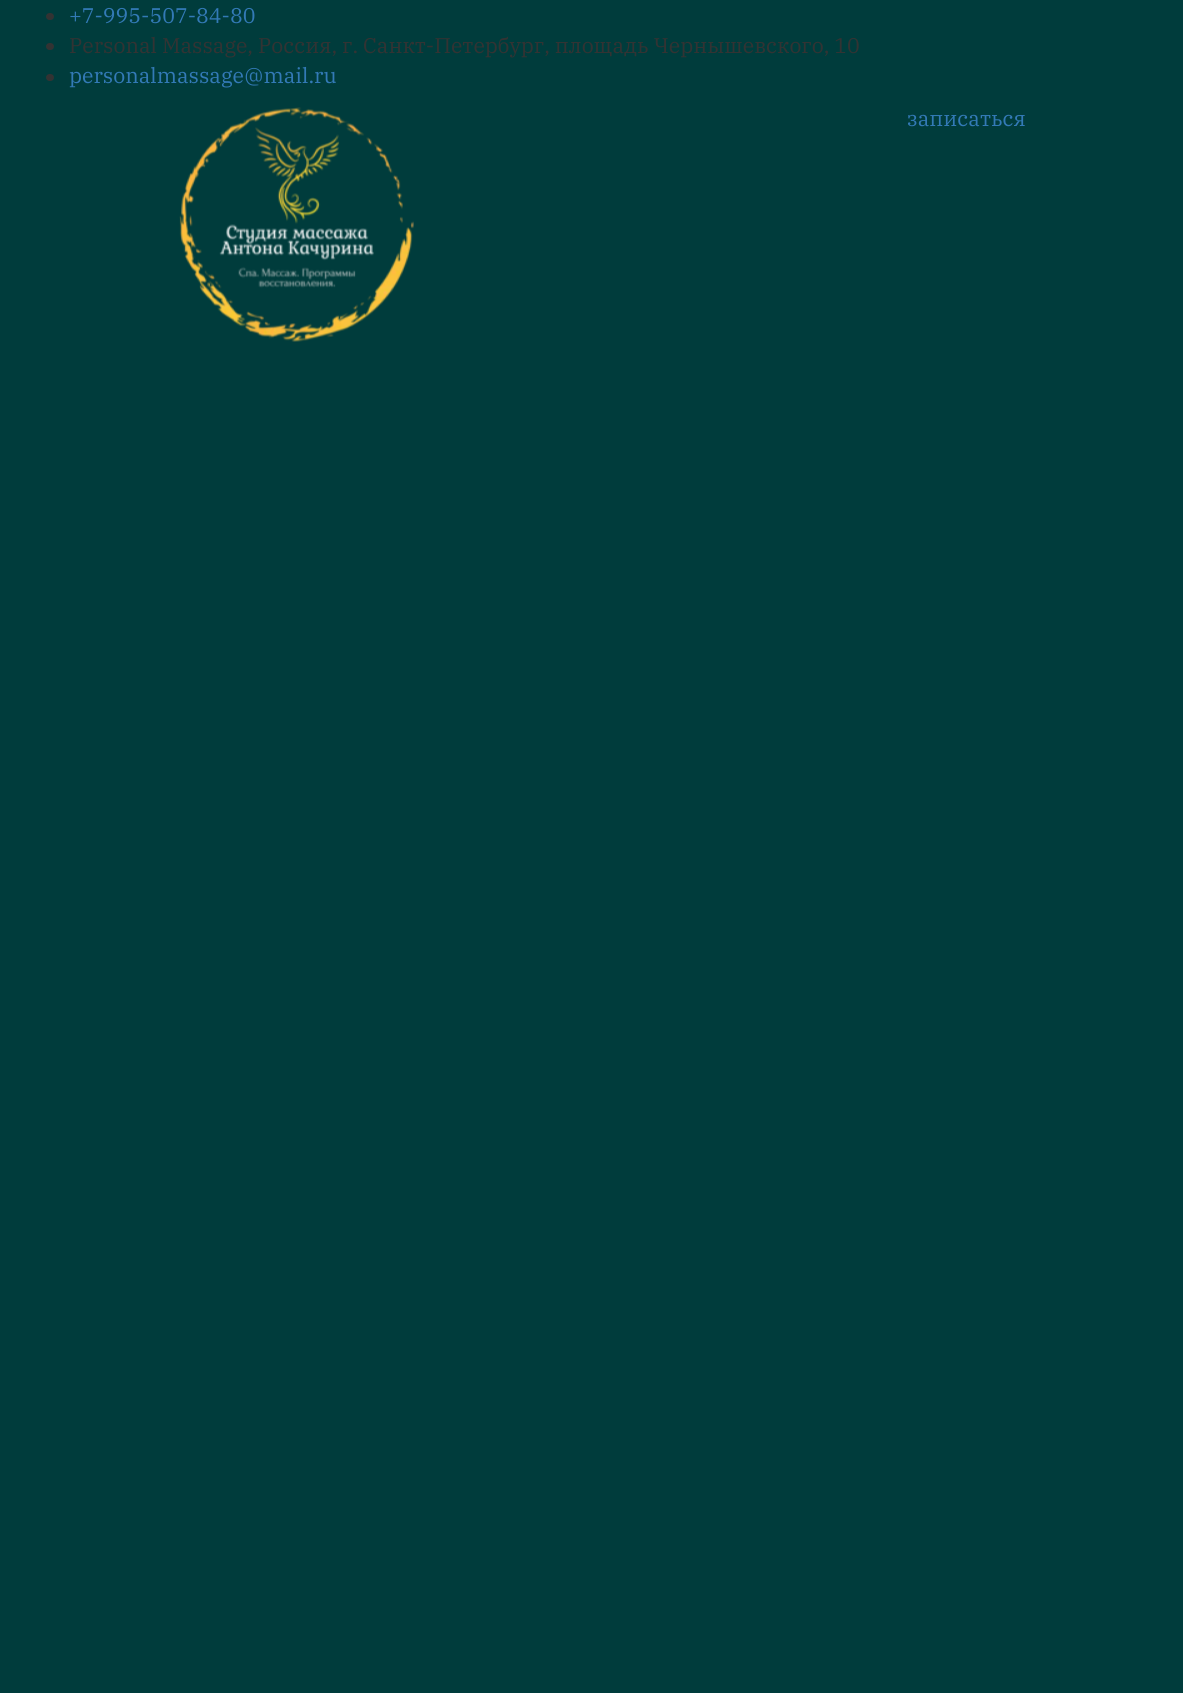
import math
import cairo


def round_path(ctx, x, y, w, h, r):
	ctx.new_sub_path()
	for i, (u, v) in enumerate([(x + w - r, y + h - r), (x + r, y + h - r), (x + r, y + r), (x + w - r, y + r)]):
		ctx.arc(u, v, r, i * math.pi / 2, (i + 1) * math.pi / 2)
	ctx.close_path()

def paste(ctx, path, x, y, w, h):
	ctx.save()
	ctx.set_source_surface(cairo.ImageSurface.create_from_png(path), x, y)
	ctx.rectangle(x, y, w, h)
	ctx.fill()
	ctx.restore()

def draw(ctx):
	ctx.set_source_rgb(0, 0.235, 0.235)
	ctx.paint()
	ctx.set_source_rgb(0.2, 0.2, 0.2)
	round_path(ctx, 46, 13, 8, 7, 3.5)
	ctx.fill()
	ctx.select_font_face('IBM Plex Serif')
	ctx.set_font_size(21.25)
	ctx.set_source_rgb(0.2, 0.478, 0.718)
	ctx.move_to(69, 23)
	ctx.show_text('+7-995-507-84-80')
	ctx.set_source_rgb(0.2, 0.2, 0.2)
	round_path(ctx, 46, 43, 8, 7, 3.5)
	ctx.fill()
	ctx.move_to(69, 53)
	ctx.show_text('Personal Massage, Россия, г. Санкт-Петербург, площадь Чернышевского, 10')
	round_path(ctx, 46, 74, 8, 7, 3.5)
	ctx.fill()
	ctx.set_source_rgb(0.2, 0.478, 0.718)
	ctx.move_to(69, 83)
	ctx.show_text('personalmassage@mail.ru')
	paste(ctx, 'media/1.png', 179, 107, 235, 235)
	ctx.move_to(907, 126)
	ctx.show_text('записаться')


surface = cairo.ImageSurface(cairo.FORMAT_RGB24, 1183, 1693)
ctx = cairo.Context(surface)
options = cairo.FontOptions()
options.set_hint_metrics(cairo.HINT_METRICS_OFF)
options.set_hint_style(cairo.HINT_STYLE_NONE)
ctx.set_font_options(options)
ctx.set_miter_limit(4)
draw(ctx)
surface.write_to_png('image.png')
